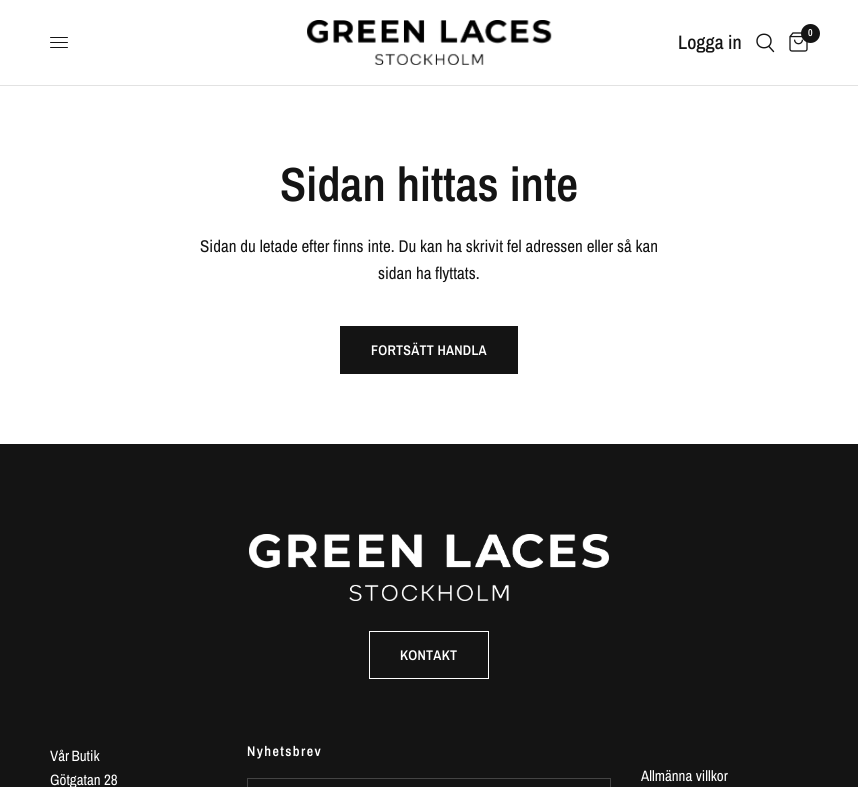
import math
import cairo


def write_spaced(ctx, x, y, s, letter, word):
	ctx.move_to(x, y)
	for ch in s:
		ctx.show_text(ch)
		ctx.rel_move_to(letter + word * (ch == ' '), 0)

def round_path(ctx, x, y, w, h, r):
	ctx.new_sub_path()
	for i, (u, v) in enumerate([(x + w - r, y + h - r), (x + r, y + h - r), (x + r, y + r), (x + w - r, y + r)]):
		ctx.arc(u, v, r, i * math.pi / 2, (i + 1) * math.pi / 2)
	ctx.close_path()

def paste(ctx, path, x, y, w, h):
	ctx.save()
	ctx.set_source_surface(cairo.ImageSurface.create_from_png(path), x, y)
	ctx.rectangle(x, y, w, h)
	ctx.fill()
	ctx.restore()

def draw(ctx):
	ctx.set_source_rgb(1, 1, 1)
	ctx.paint()
	ctx.set_source_rgb(0.886, 0.886, 0.886)
	ctx.rectangle(0, 85, 858, 1)
	ctx.fill()
	ctx.set_source_rgb(0.082, 0.082, 0.082)
	round_path(ctx, 50, 37, 18, 1, 0.5)
	ctx.fill()
	round_path(ctx, 50, 42, 18, 1, 0.5)
	ctx.fill()
	round_path(ctx, 50, 47, 18, 1, 0.5)
	ctx.fill()
	paste(ctx, 'media/1.png', 307, 20, 245, 45)
	ctx.select_font_face('Archivo Narrow Medium')
	ctx.set_font_size(19.5)
	ctx.move_to(678, 49)
	ctx.show_text('Logga in')
	ctx.new_path()
	ctx.move_to(769, 46.5)
	ctx.line_to(773.5, 51.5)
	ctx.move_to(771, 41)
	ctx.curve_to(771, 50, 757, 50, 757, 41)
	ctx.curve_to(757, 32, 771, 32, 771, 41)
	ctx.close_path()
	ctx.set_line_width(1.4)
	ctx.set_line_cap(cairo.LINE_CAP_ROUND)
	ctx.set_line_join(cairo.LINE_JOIN_ROUND)
	ctx.stroke()
	paste(ctx, 'media/2.png', 789, 32, 19, 20)
	ctx.arc(810.5, 33.5, 9.5, 0, 2 * math.pi)
	ctx.fill()
	ctx.select_font_face('Archivo Narrow SemiBold')
	ctx.set_font_size(10)
	ctx.set_source_rgb(1, 1, 1)
	ctx.move_to(808, 36)
	ctx.show_text('0')
	ctx.set_font_size(48)
	ctx.set_source_rgb(0.082, 0.082, 0.082)
	ctx.move_to(280, 201)
	ctx.show_text('Sidan hittas inte')
	ctx.select_font_face('Archivo Narrow')
	ctx.set_font_size(17)
	ctx.move_to(200, 252)
	ctx.show_text('Sidan du letade efter finns inte. Du kan ha skrivit fel adressen eller så kan')
	ctx.move_to(378, 279)
	ctx.show_text('sidan ha flyttats.')
	ctx.rectangle(340, 326, 178, 48)
	ctx.fill()
	ctx.select_font_face('Archivo Narrow SemiBold')
	ctx.set_font_size(14)
	ctx.set_source_rgb(1, 1, 1)
	write_spaced(ctx, 371, 355, 'FORTSÄTT HANDLA', 0.25, 0)
	ctx.set_source_rgb(0.082, 0.082, 0.082)
	ctx.rectangle(0, 444, 858, 343)
	ctx.fill()
	paste(ctx, 'media/3.png', 249, 534, 360, 67)
	ctx.rectangle(369.5, 631.5, 119, 47)
	ctx.set_source_rgb(1, 1, 1)
	ctx.set_line_width(1)
	ctx.set_line_cap(cairo.LINE_CAP_BUTT)
	ctx.set_line_join(cairo.LINE_JOIN_MITER)
	ctx.stroke()
	write_spaced(ctx, 400, 660, 'KONTAKT', 0.25, 0)
	ctx.select_font_face('Archivo Narrow')
	ctx.set_font_size(15)
	write_spaced(ctx, 50, 761, 'Vår Butik', 0, -1)
	ctx.move_to(50, 785)
	ctx.show_text('Götgatan 28')
	ctx.select_font_face('Archivo Narrow SemiBold')
	ctx.set_font_size(14)
	write_spaced(ctx, 247, 756, 'Nyhetsbrev', 1.4, 0)
	ctx.rectangle(247.5, 778.5, 363, 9)
	ctx.set_source_rgb(0.267, 0.267, 0.267)
	ctx.stroke()
	ctx.select_font_face('Archivo Narrow')
	ctx.set_font_size(15)
	ctx.set_source_rgb(1, 1, 1)
	ctx.move_to(641, 781)
	ctx.show_text('Allmänna villkor')


surface = cairo.ImageSurface(cairo.FORMAT_RGB24, 858, 787)
ctx = cairo.Context(surface)
options = cairo.FontOptions()
options.set_hint_metrics(cairo.HINT_METRICS_OFF)
options.set_hint_style(cairo.HINT_STYLE_NONE)
ctx.set_font_options(options)
ctx.set_miter_limit(4)
draw(ctx)
surface.write_to_png('image.png')
